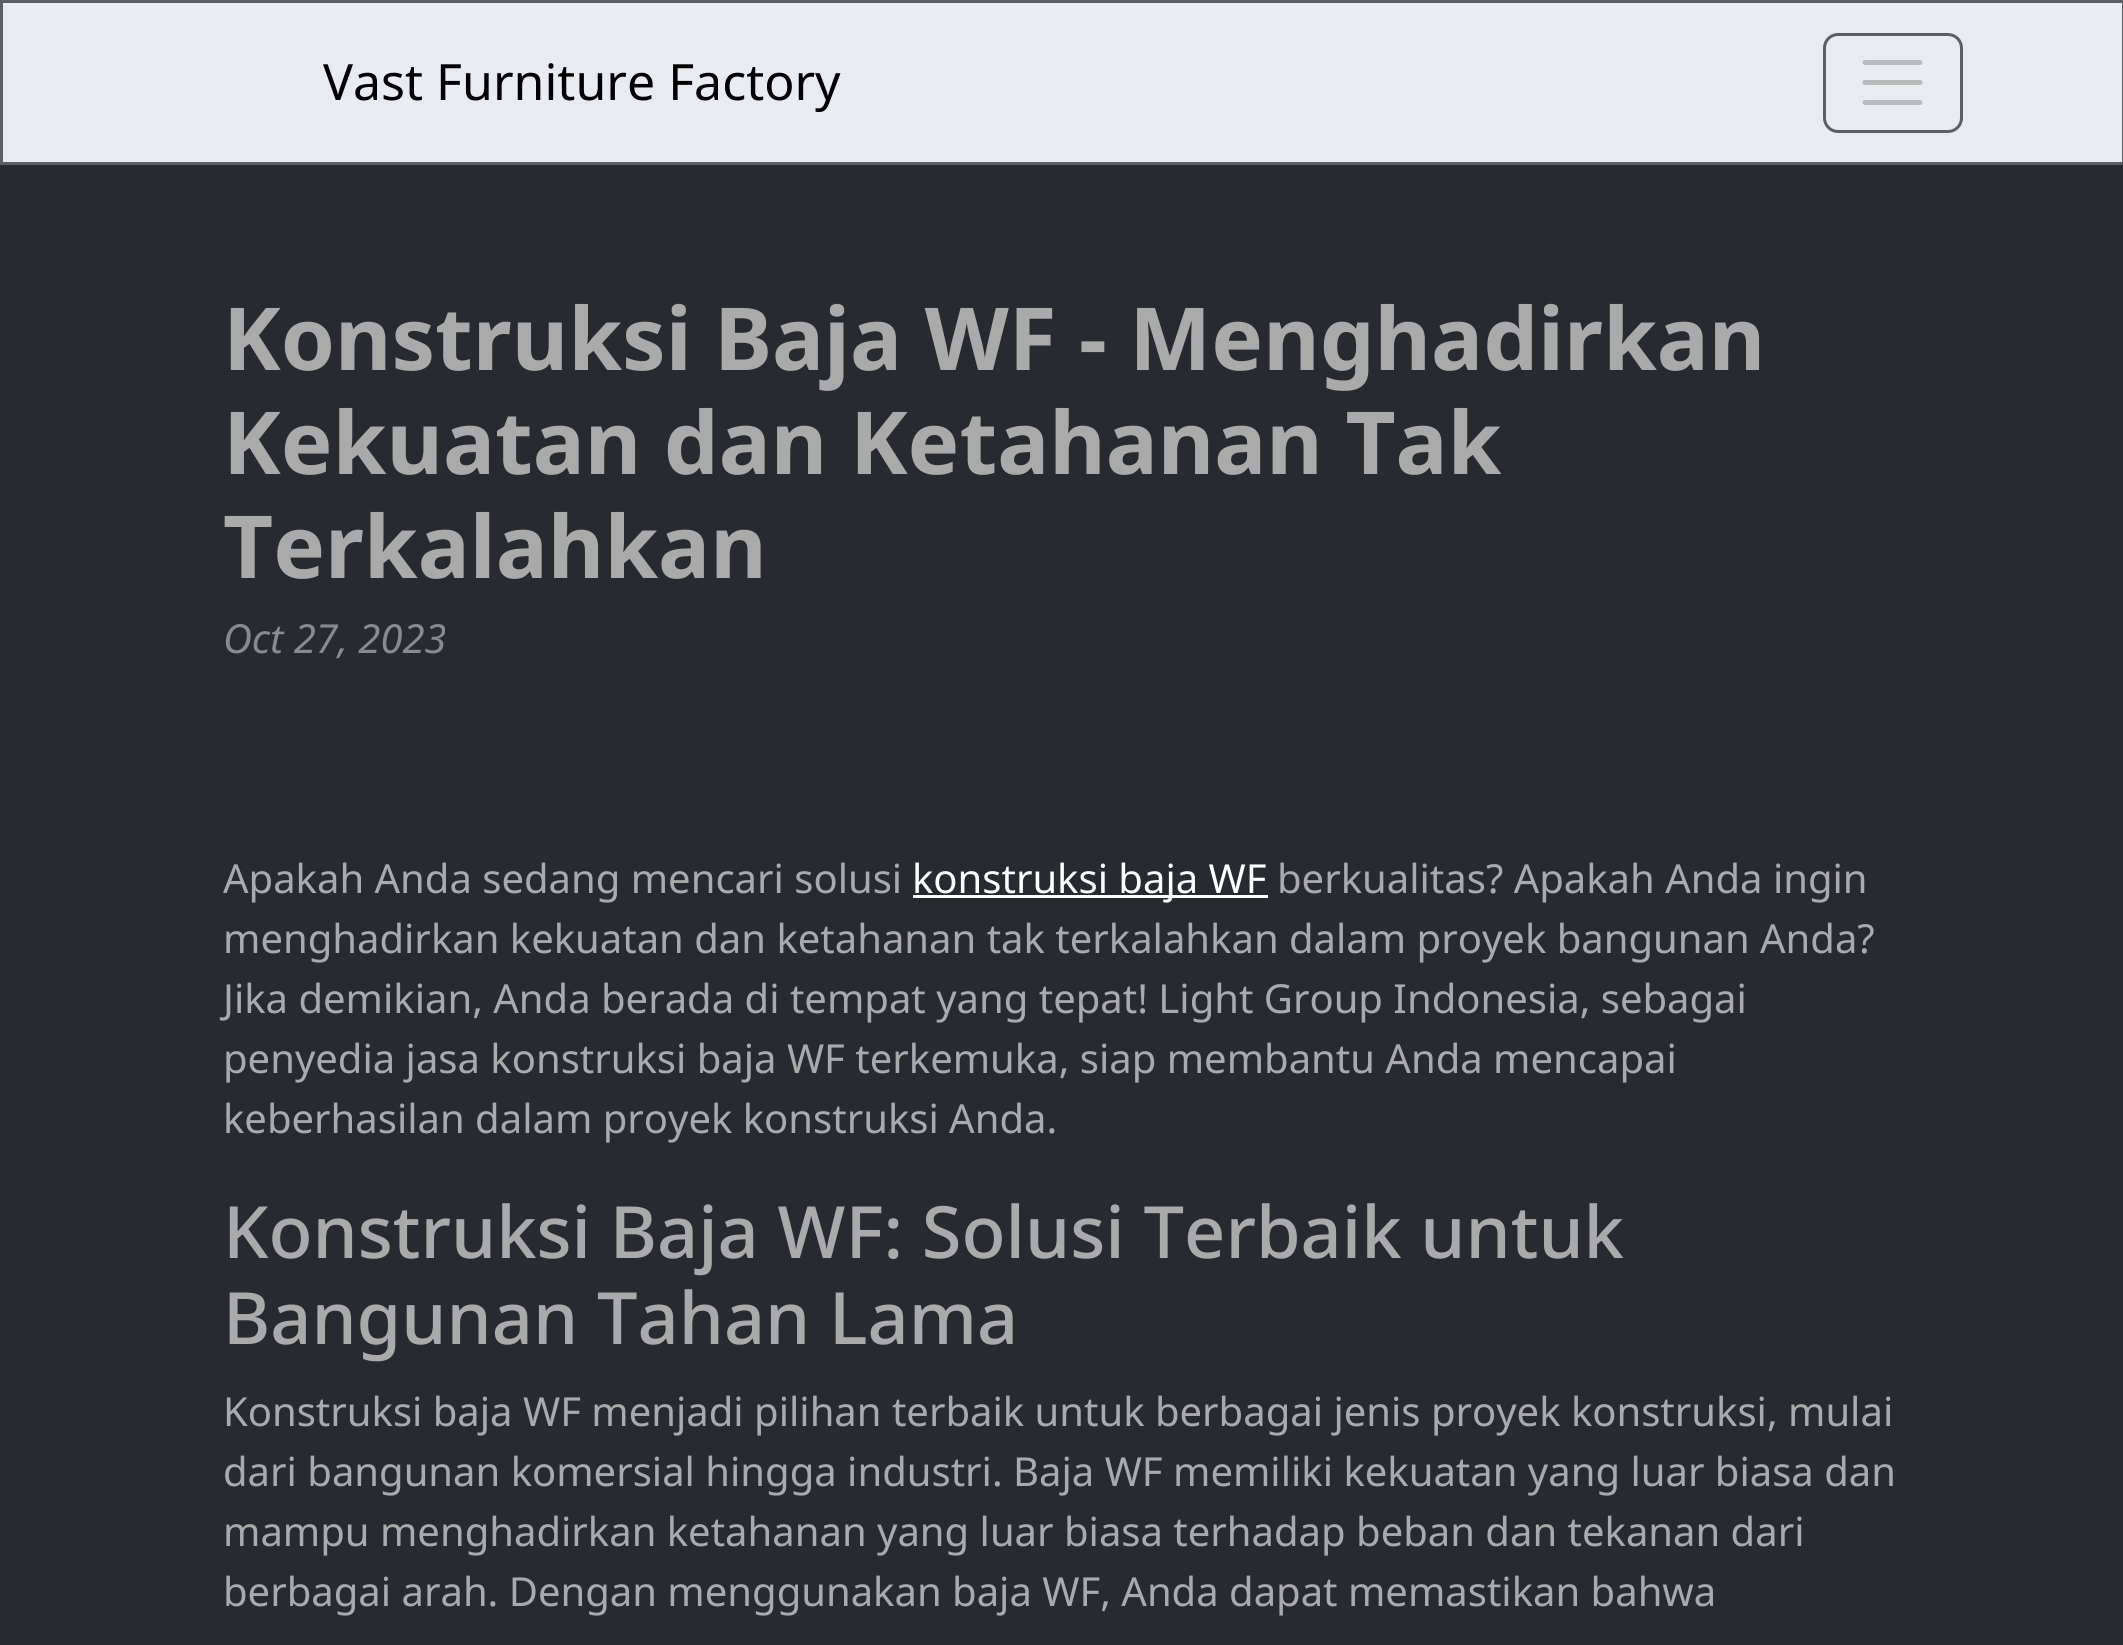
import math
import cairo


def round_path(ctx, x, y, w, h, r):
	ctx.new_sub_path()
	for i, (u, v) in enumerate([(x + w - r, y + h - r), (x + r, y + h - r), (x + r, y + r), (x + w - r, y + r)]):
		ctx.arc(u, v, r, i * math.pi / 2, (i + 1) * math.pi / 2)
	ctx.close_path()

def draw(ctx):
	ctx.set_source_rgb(0.153, 0.169, 0.188)
	ctx.paint()
	ctx.set_source_rgb(0.914, 0.925, 0.937)
	ctx.rectangle(1.5, 1.5, 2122, 162)
	ctx.fill_preserve()
	ctx.set_source_rgb(0.365, 0.369, 0.376)
	ctx.set_line_width(3)
	ctx.stroke()
	ctx.select_font_face('Noto Sans')
	ctx.set_font_size(50)
	ctx.set_source_rgb(0, 0, 0)
	ctx.move_to(323, 100)
	ctx.show_text('Vast Furniture Factory')
	round_path(ctx, 1824.5, 34.5, 137, 97, 13.5)
	ctx.set_source_rgb(0.365, 0.369, 0.376)
	ctx.stroke()
	ctx.new_path()
	ctx.move_to(1865, 62.5)
	ctx.line_to(1920, 62.5)
	ctx.move_to(1865, 82.5)
	ctx.line_to(1920, 82.5)
	ctx.move_to(1865, 102.5)
	ctx.line_to(1920, 102.5)
	ctx.set_source_rgb(0.729, 0.733, 0.733)
	ctx.set_line_width(5)
	ctx.set_line_cap(cairo.LINE_CAP_ROUND)
	ctx.stroke()
	ctx.select_font_face('Noto Sans', cairo.FONT_SLANT_NORMAL, cairo.FONT_WEIGHT_BOLD)
	ctx.set_font_size(86.9)
	ctx.set_source_rgb(0.667, 0.667, 0.667)
	for x, y, s in [
		(223, 370, 'Konstruksi Baja WF - Menghadirkan'),
		(223, 474, 'Kekuatan dan Ketahanan Tak'),
		(223, 578, 'Terkalahkan'),
	]:
		ctx.move_to(x, y)
		ctx.show_text(s)
	ctx.select_font_face('Noto Sans', cairo.FONT_SLANT_ITALIC)
	ctx.set_font_size(40)
	ctx.set_source_rgb(0.537, 0.541, 0.549)
	ctx.move_to(223, 653)
	ctx.show_text('Oct 27, 2023')
	ctx.select_font_face('Noto Sans')
	ctx.set_source_rgb(0.667, 0.667, 0.667)
	ctx.move_to(223, 893)
	ctx.show_text('Apakah Anda sedang mencari solusi')
	ctx.set_source_rgb(1, 1, 1)
	ctx.rectangle(913, 895, 355, 3)
	ctx.fill()
	ctx.move_to(912, 893)
	ctx.show_text('konstruksi baja WF')
	ctx.set_source_rgb(0.667, 0.667, 0.667)
	for x, y, s in [
		(1277, 893, 'berkualitas? Apakah Anda ingin'),
		(223, 953, 'menghadirkan kekuatan dan ketahanan tak terkalahkan dalam proyek bangunan Anda?'),
		(223, 1013, 'Jika demikian, Anda berada di tempat yang tepat! Light Group Indonesia, sebagai'),
		(223, 1073, 'penyedia jasa konstruksi baja WF terkemuka, siap membantu Anda mencapai'),
		(223, 1133, 'keberhasilan dalam proyek konstruksi Anda.'),
	]:
		ctx.move_to(x, y)
		ctx.show_text(s)
	ctx.select_font_face('Noto Sans Medium')
	ctx.set_font_size(72.1)
	ctx.move_to(223, 1258)
	ctx.show_text('Konstruksi Baja WF: Solusi Terbaik untuk')
	ctx.move_to(223, 1344)
	ctx.show_text('Bangunan Tahan Lama')
	ctx.select_font_face('Noto Sans')
	ctx.set_font_size(40)
	for x, y, s in [
		(223, 1426, 'Konstruksi baja WF menjadi pilihan terbaik untuk berbagai jenis proyek konstruksi, mulai'),
		(223, 1486, 'dari bangunan komersial hingga industri. Baja WF memiliki kekuatan yang luar biasa dan'),
		(223, 1546, 'mampu menghadirkan ketahanan yang luar biasa terhadap beban dan tekanan dari'),
		(223, 1606, 'berbagai arah. Dengan menggunakan baja WF, Anda dapat memastikan bahwa'),
	]:
		ctx.move_to(x, y)
		ctx.show_text(s)


surface = cairo.ImageSurface(cairo.FORMAT_RGB24, 2123, 1645)
ctx = cairo.Context(surface)
options = cairo.FontOptions()
options.set_hint_metrics(cairo.HINT_METRICS_OFF)
options.set_hint_style(cairo.HINT_STYLE_NONE)
ctx.set_font_options(options)
ctx.set_miter_limit(4)
draw(ctx)
surface.write_to_png('image.png')
